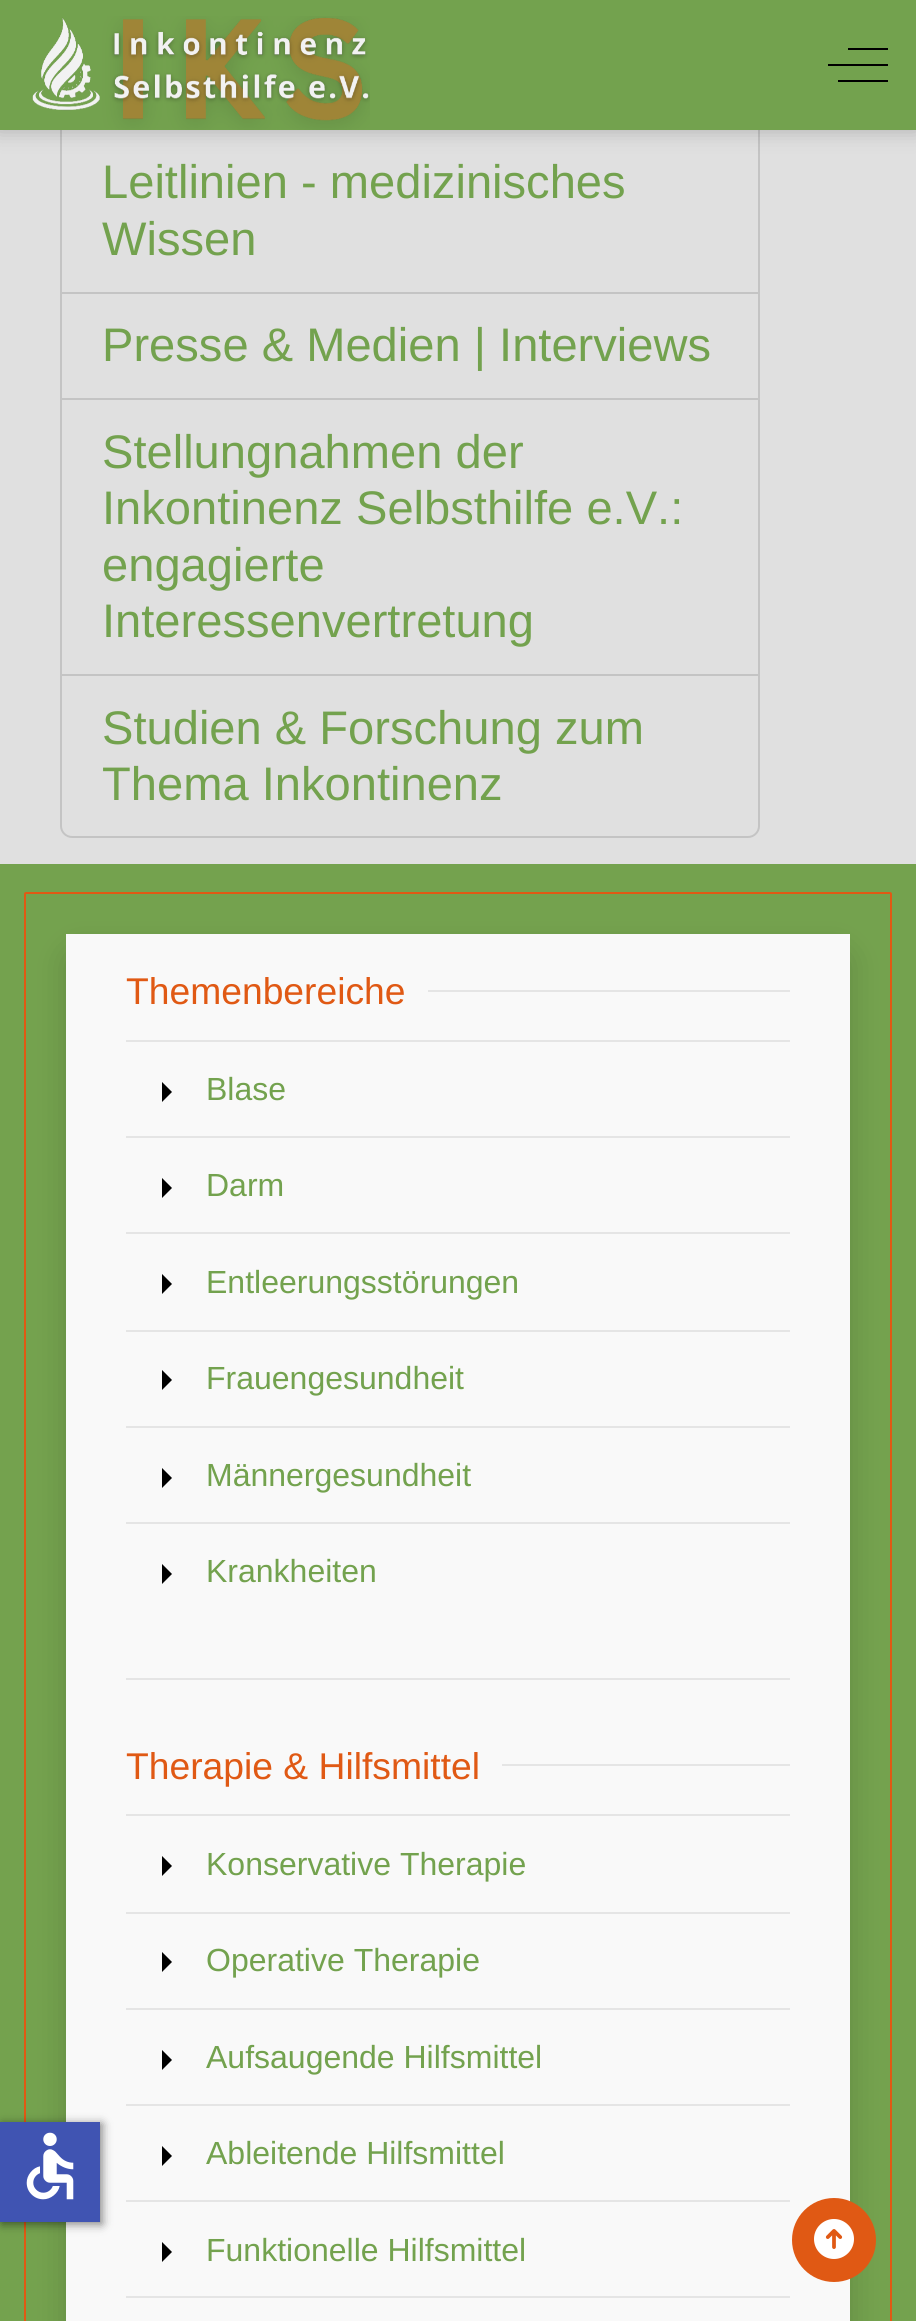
import math
import cairo


def round_path(ctx, x, y, w, h, r):
	ctx.new_sub_path()
	for i, (u, v) in enumerate([(x + w - r, y + h - r), (x + r, y + h - r), (x + r, y + r), (x + w - r, y + r)]):
		ctx.arc(u, v, r, i * math.pi / 2, (i + 1) * math.pi / 2)
	ctx.close_path()

def blur_box(ctx, x, y, w, h, r, blur, alpha):
	ctx.push_group_with_content(cairo.CONTENT_ALPHA)
	ctx.set_operator(cairo.OPERATOR_SOURCE)
	for i in range(15, -16, -2):
		e = blur * i / 6
		if min(w, h) + 2 * e > 0:
			ctx.set_source_rgba(0, 0, 0, alpha * math.erfc((i - 1) / 8.5) / 2)
			round_path(ctx, x - e, y - e, w + 2 * e, h + 2 * e, max(0, min(r + e + blur * .6, min(w, h) / 2 + e)))
			ctx.fill()
	ctx.mask(ctx.pop_group())

def paste(ctx, path, x, y, w, h):
	ctx.save()
	ctx.set_source_surface(cairo.ImageSurface.create_from_png(path), x, y)
	ctx.rectangle(x, y, w, h)
	ctx.fill()
	ctx.restore()

def draw(ctx):
	ctx.set_source_rgb(0.878, 0.878, 0.878)
	ctx.paint()
	ctx.set_source_rgb(0.455, 0.635, 0.306)
	ctx.rectangle(0, 864, 916, 1457)
	ctx.fill()
	round_path(ctx, 25, 893, 866, 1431, 1)
	ctx.set_source_rgb(0.878, 0.349, 0.082)
	ctx.stroke()
	ctx.set_source_rgb(0, 0, 0)
	blur_box(ctx, 66, 950, 784, 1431, 12, 16, 0.15)
	ctx.set_source_rgb(0.973, 0.973, 0.973)
	ctx.rectangle(66, 934, 784, 1387)
	ctx.fill()
	ctx.set_source_rgb(0, 0, 0)
	blur_box(ctx, 2, 2124, 100, 100, 0, 5, 0.5)
	ctx.set_source_rgb(0.251, 0.329, 0.698)
	ctx.rectangle(0, 2122, 100, 100)
	ctx.fill()
	paste(ctx, 'media/1.png', 26, 2132, 48, 68)
	ctx.rectangle(61, 129, 698, 164)
	ctx.set_source_rgb(0.769, 0.769, 0.769)
	ctx.stroke()
	ctx.set_source_rgb(0, 0, 0)
	blur_box(ctx, -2, -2, 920, 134, 0, 10, 0.2)
	ctx.set_source_rgb(0.451, 0.635, 0.306)
	ctx.rectangle(0, 0, 916, 130)
	ctx.fill()
	paste(ctx, 'media/2.png', 32, 16, 338, 114)
	ctx.set_source_rgb(0, 0, 0)
	ctx.rectangle(828, 64, 60, 2)
	ctx.rectangle(848, 48, 40, 2)
	ctx.rectangle(838, 80, 50, 2)
	ctx.fill()
	ctx.select_font_face('Liberation Sans')
	ctx.set_font_size(47.1)
	ctx.set_source_rgb(0.451, 0.635, 0.306)
	ctx.move_to(102, 198)
	ctx.show_text('Leitlinien - medizinisches')
	ctx.move_to(102, 255)
	ctx.show_text('Wissen')
	ctx.rectangle(61, 293, 698, 106)
	ctx.set_source_rgb(0.769, 0.769, 0.769)
	ctx.stroke()
	ctx.set_source_rgb(0.451, 0.635, 0.306)
	ctx.move_to(102, 361)
	ctx.show_text('Presse & Medien | Interviews')
	ctx.rectangle(61, 399, 698, 276)
	ctx.set_source_rgb(0.769, 0.769, 0.769)
	ctx.stroke()
	ctx.set_source_rgb(0.451, 0.635, 0.306)
	for x, y, s in [
		(102, 468, 'Stellungnahmen der'),
		(102, 524, 'Inkontinenz Selbsthilfe e.V.:'),
		(102, 581, 'engagierte'),
		(102, 637, 'Interessenvertretung'),
	]:
		ctx.move_to(x, y)
		ctx.show_text(s)
	ctx.set_source_rgb(0.878, 0.878, 0.878)
	ctx.new_path()
	ctx.move_to(61, 675)
	ctx.line_to(759, 675)
	ctx.line_to(759, 826)
	ctx.curve_to(759, 832, 754, 837, 748, 837)
	ctx.line_to(72, 837)
	ctx.curve_to(66, 837, 61, 832, 61, 826)
	ctx.close_path()
	ctx.fill_preserve()
	ctx.set_source_rgb(0.769, 0.769, 0.769)
	ctx.stroke()
	ctx.set_source_rgb(0.451, 0.635, 0.306)
	ctx.move_to(102, 744)
	ctx.show_text('Studien & Forschung zum')
	ctx.move_to(102, 800)
	ctx.show_text('Thema Inkontinenz')
	ctx.set_font_size(37.25)
	ctx.set_source_rgb(0.878, 0.349, 0.082)
	ctx.move_to(126, 1004)
	ctx.show_text('Themenbereiche')
	ctx.set_source_rgb(0.898, 0.898, 0.898)
	ctx.rectangle(428, 990, 362, 2)
	ctx.rectangle(126, 1040, 664, 2)
	ctx.rectangle(126, 1136, 664, 2)
	ctx.fill()
	ctx.set_source_rgb(0, 0, 0)
	ctx.new_path()
	ctx.move_to(162, 1082)
	ctx.line_to(172, 1092)
	ctx.line_to(162, 1102)
	ctx.close_path()
	ctx.fill()
	ctx.set_font_size(32)
	ctx.set_source_rgb(0.451, 0.635, 0.306)
	ctx.move_to(206, 1100)
	ctx.show_text('Blase')
	ctx.set_source_rgb(0, 0, 0)
	ctx.new_path()
	ctx.move_to(162, 1178)
	ctx.line_to(172, 1188)
	ctx.line_to(162, 1198)
	ctx.close_path()
	ctx.fill()
	ctx.set_source_rgb(0.451, 0.635, 0.306)
	ctx.move_to(206, 1196)
	ctx.show_text('Darm')
	ctx.set_source_rgb(0.898, 0.898, 0.898)
	ctx.rectangle(126, 1232, 664, 2)
	ctx.fill()
	ctx.rectangle(126, 1330, 664, 2)
	ctx.fill()
	ctx.set_source_rgb(0, 0, 0)
	ctx.new_path()
	ctx.move_to(162, 1274)
	ctx.line_to(172, 1284)
	ctx.line_to(162, 1294)
	ctx.close_path()
	ctx.fill()
	ctx.set_source_rgb(0.451, 0.635, 0.306)
	ctx.move_to(206, 1293)
	ctx.show_text('Entleerungsstörungen')
	ctx.set_source_rgb(0, 0, 0)
	ctx.new_path()
	ctx.move_to(162, 1370)
	ctx.line_to(172, 1380)
	ctx.line_to(162, 1390)
	ctx.close_path()
	ctx.fill()
	ctx.set_source_rgb(0.451, 0.635, 0.306)
	ctx.move_to(206, 1389)
	ctx.show_text('Frauengesundheit')
	ctx.set_source_rgb(0.898, 0.898, 0.898)
	ctx.rectangle(126, 1426, 664, 2)
	ctx.fill()
	ctx.rectangle(126, 1522, 664, 2)
	ctx.fill()
	ctx.set_source_rgb(0, 0, 0)
	ctx.new_path()
	ctx.move_to(162, 1468)
	ctx.line_to(172, 1478)
	ctx.line_to(162, 1488)
	ctx.close_path()
	ctx.fill()
	ctx.set_source_rgb(0.451, 0.635, 0.306)
	ctx.move_to(206, 1486)
	ctx.show_text('Männergesundheit')
	ctx.set_source_rgb(0, 0, 0)
	ctx.new_path()
	ctx.move_to(162, 1564)
	ctx.line_to(172, 1574)
	ctx.line_to(162, 1584)
	ctx.close_path()
	ctx.fill()
	ctx.set_source_rgb(0.451, 0.635, 0.306)
	ctx.move_to(206, 1582)
	ctx.show_text('Krankheiten')
	ctx.set_source_rgb(0.898, 0.898, 0.898)
	ctx.rectangle(126, 1678, 664, 2)
	ctx.fill()
	ctx.set_font_size(37.25)
	ctx.set_source_rgb(0.878, 0.349, 0.082)
	ctx.move_to(126, 1779)
	ctx.show_text('Therapie & Hilfsmittel')
	ctx.set_source_rgb(0.898, 0.898, 0.898)
	ctx.rectangle(502, 1764, 288, 2)
	ctx.rectangle(126, 1814, 664, 2)
	ctx.rectangle(126, 1912, 664, 2)
	ctx.fill()
	ctx.set_source_rgb(0, 0, 0)
	ctx.new_path()
	ctx.move_to(162, 1856)
	ctx.line_to(172, 1866)
	ctx.line_to(162, 1876)
	ctx.close_path()
	ctx.fill()
	ctx.set_font_size(32)
	ctx.set_source_rgb(0.451, 0.635, 0.306)
	ctx.move_to(206, 1875)
	ctx.show_text('Konservative Therapie')
	ctx.set_source_rgb(0, 0, 0)
	ctx.new_path()
	ctx.move_to(162, 1952)
	ctx.line_to(172, 1962)
	ctx.line_to(162, 1972)
	ctx.close_path()
	ctx.fill()
	ctx.set_source_rgb(0.451, 0.635, 0.306)
	ctx.move_to(206, 1971)
	ctx.show_text('Operative Therapie')
	ctx.set_source_rgb(0.898, 0.898, 0.898)
	ctx.rectangle(126, 2008, 664, 2)
	ctx.fill()
	ctx.rectangle(126, 2104, 664, 2)
	ctx.fill()
	ctx.set_source_rgb(0, 0, 0)
	ctx.new_path()
	ctx.move_to(162, 2050)
	ctx.line_to(172, 2060)
	ctx.line_to(162, 2070)
	ctx.close_path()
	ctx.fill()
	ctx.set_source_rgb(0.451, 0.635, 0.306)
	ctx.move_to(206, 2068)
	ctx.show_text('Aufsaugende Hilfsmittel')
	ctx.set_source_rgb(0, 0, 0)
	ctx.new_path()
	ctx.move_to(162, 2146)
	ctx.line_to(172, 2156)
	ctx.line_to(162, 2166)
	ctx.close_path()
	ctx.fill()
	ctx.set_source_rgb(0.451, 0.635, 0.306)
	ctx.move_to(206, 2164)
	ctx.show_text('Ableitende Hilfsmittel')
	ctx.set_source_rgb(0.898, 0.898, 0.898)
	ctx.rectangle(126, 2200, 664, 2)
	ctx.fill()
	ctx.rectangle(126, 2296, 664, 2)
	ctx.fill()
	ctx.set_source_rgb(0, 0, 0)
	ctx.new_path()
	ctx.move_to(162, 2242)
	ctx.line_to(172, 2252)
	ctx.line_to(162, 2262)
	ctx.close_path()
	ctx.fill()
	ctx.set_source_rgb(0.451, 0.635, 0.306)
	ctx.move_to(206, 2261)
	ctx.show_text('Funktionelle Hilfsmittel')
	ctx.set_source_rgb(0.878, 0.349, 0.082)
	ctx.new_path()
	ctx.arc(834, 2240, 42, 0, 2 * math.pi)
	ctx.fill()
	paste(ctx, 'media/3.png', 814, 2219, 40, 40)


surface = cairo.ImageSurface(cairo.FORMAT_RGB24, 916, 2321)
ctx = cairo.Context(surface)
options = cairo.FontOptions()
options.set_hint_metrics(cairo.HINT_METRICS_OFF)
options.set_hint_style(cairo.HINT_STYLE_NONE)
ctx.set_font_options(options)
ctx.set_miter_limit(4)
draw(ctx)
surface.write_to_png('image.png')
